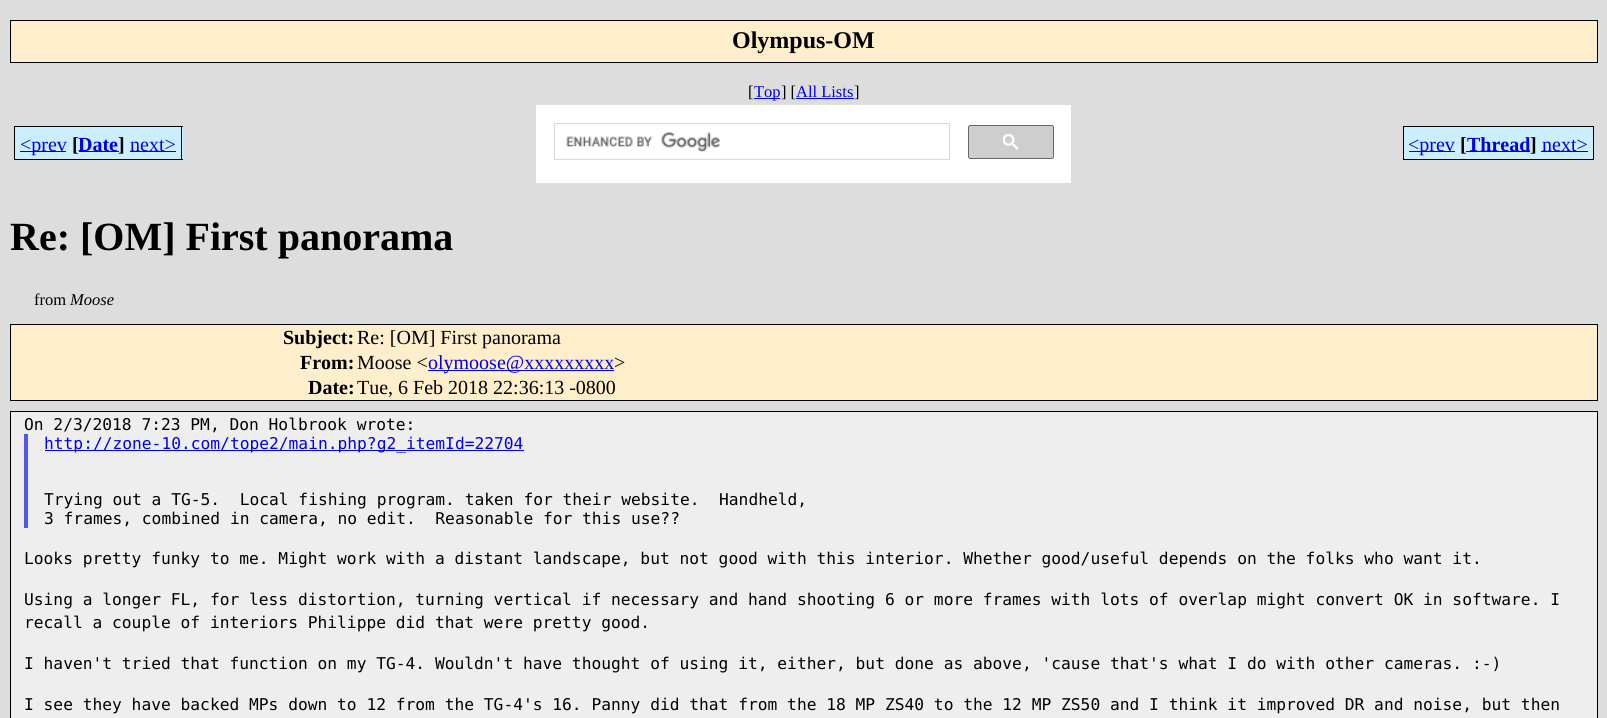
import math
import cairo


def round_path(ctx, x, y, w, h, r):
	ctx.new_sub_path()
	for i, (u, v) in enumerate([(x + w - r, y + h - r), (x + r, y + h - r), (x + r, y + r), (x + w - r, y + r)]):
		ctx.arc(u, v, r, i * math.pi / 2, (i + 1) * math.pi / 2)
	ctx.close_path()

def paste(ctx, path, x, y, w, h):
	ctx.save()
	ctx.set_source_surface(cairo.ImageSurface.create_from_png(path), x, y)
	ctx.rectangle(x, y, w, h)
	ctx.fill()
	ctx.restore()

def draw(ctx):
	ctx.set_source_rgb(0.867, 0.867, 0.867)
	ctx.paint()
	ctx.set_source_rgb(1, 0.933, 0.8)
	ctx.rectangle(10.5, 20.5, 1587, 42)
	ctx.fill_preserve()
	ctx.set_source_rgb(0, 0, 0)
	ctx.set_line_width(1)
	ctx.stroke()
	ctx.select_font_face('Liberation Serif', cairo.FONT_SLANT_NORMAL, cairo.FONT_WEIGHT_BOLD)
	ctx.set_font_size(24)
	ctx.move_to(732, 48)
	ctx.show_text('Olympus-OM')
	ctx.select_font_face('Liberation Serif')
	ctx.set_font_size(16.5)
	ctx.move_to(748, 97)
	ctx.show_text('[')
	ctx.set_source_rgb(0, 0, 0.933)
	ctx.rectangle(754, 98, 26, 1)
	ctx.fill()
	ctx.move_to(754, 97)
	ctx.show_text('Top')
	ctx.set_source_rgb(0, 0, 0)
	ctx.move_to(781, 97)
	ctx.show_text('] [')
	ctx.set_source_rgb(0, 0, 0.933)
	ctx.move_to(796, 97)
	ctx.show_text('All Lists')
	ctx.set_source_rgb(0, 0, 0)
	ctx.move_to(854, 97)
	ctx.show_text(']')
	ctx.set_source_rgb(0, 0, 0.933)
	ctx.rectangle(796, 98, 58, 1)
	ctx.fill()
	ctx.set_source_rgb(0.8, 0.933, 1)
	ctx.rectangle(15, 127, 51, 32)
	ctx.fill()
	ctx.set_source_rgb(0, 0, 0.933)
	ctx.rectangle(20, 151, 46, 1)
	ctx.fill()
	ctx.set_source_rgb(0.8, 0.933, 1)
	ctx.rectangle(66, 126, 13, 34)
	ctx.fill()
	ctx.set_font_size(20)
	ctx.set_source_rgb(0, 0, 0.933)
	ctx.move_to(20, 151)
	ctx.show_text('<prev')
	ctx.set_source_rgb(0, 0, 0)
	ctx.rectangle(14, 126, 52, 1)
	ctx.rectangle(14, 159, 52, 1)
	ctx.rectangle(14, 126, 1, 34)
	ctx.rectangle(66, 159, 53, 1)
	ctx.fill()
	ctx.select_font_face('Liberation Serif', cairo.FONT_SLANT_NORMAL, cairo.FONT_WEIGHT_BOLD)
	ctx.move_to(72, 151)
	ctx.show_text('[')
	ctx.set_source_rgb(0.8, 0.933, 1)
	ctx.rectangle(79, 127, 40, 32)
	ctx.fill()
	ctx.set_source_rgb(0, 0, 0.933)
	ctx.rectangle(79, 151, 40, 1)
	ctx.fill()
	ctx.move_to(78, 151)
	ctx.show_text('Date')
	ctx.set_source_rgb(0, 0, 0)
	ctx.rectangle(66, 126, 53, 1)
	ctx.fill()
	ctx.set_source_rgb(0.8, 0.933, 1)
	ctx.rectangle(119, 126, 11, 34)
	ctx.fill()
	ctx.set_source_rgb(0, 0, 0)
	ctx.rectangle(119, 126, 64, 1)
	ctx.fill()
	ctx.move_to(118, 151)
	ctx.show_text(']')
	ctx.rectangle(119, 159, 11, 1)
	ctx.fill()
	ctx.set_source_rgb(0.8, 0.933, 1)
	ctx.rectangle(130, 127, 53, 32)
	ctx.fill()
	ctx.set_source_rgb(0, 0, 0.933)
	ctx.rectangle(130, 151, 46, 1)
	ctx.fill()
	ctx.select_font_face('Liberation Serif')
	ctx.move_to(130, 151)
	ctx.show_text('next>')
	ctx.set_source_rgb(0, 0, 0)
	ctx.rectangle(181, 126, 1, 34)
	ctx.rectangle(130, 159, 53, 1)
	ctx.fill()
	ctx.set_source_rgb(1, 1, 1)
	ctx.rectangle(536, 105, 535, 78)
	ctx.fill()
	ctx.rectangle(554.5, 123.5, 395, 36)
	ctx.set_source_rgb(0.851, 0.851, 0.851)
	ctx.stroke()
	paste(ctx, 'media/1.png', 566, 132, 154, 20)
	ctx.set_source_rgb(0.808, 0.808, 0.808)
	round_path(ctx, 968.5, 125.5, 85, 33, 2)
	ctx.fill_preserve()
	ctx.set_source_rgb(0.4, 0.4, 0.4)
	ctx.stroke()
	paste(ctx, 'media/2.png', 1003, 134, 16, 16)
	ctx.set_source_rgb(0.8, 0.933, 1)
	ctx.rectangle(1404, 127, 51, 32)
	ctx.fill()
	ctx.set_source_rgb(0, 0, 0.933)
	ctx.rectangle(1409, 151, 46, 1)
	ctx.fill()
	ctx.set_source_rgb(0.8, 0.933, 1)
	ctx.rectangle(1455, 126, 11, 34)
	ctx.fill()
	ctx.set_source_rgb(0, 0, 0.933)
	ctx.move_to(1408, 151)
	ctx.show_text('<prev')
	ctx.set_source_rgb(0, 0, 0)
	ctx.rectangle(1403, 126, 52, 1)
	ctx.rectangle(1403, 159, 52, 1)
	ctx.rectangle(1403, 126, 1, 34)
	ctx.rectangle(1455, 159, 75, 1)
	ctx.fill()
	ctx.set_source_rgb(0.8, 0.933, 1)
	ctx.rectangle(1466, 127, 64, 32)
	ctx.fill()
	ctx.select_font_face('Liberation Serif', cairo.FONT_SLANT_NORMAL, cairo.FONT_WEIGHT_BOLD)
	ctx.set_source_rgb(0, 0, 0)
	ctx.move_to(1460, 151)
	ctx.show_text('[')
	ctx.set_source_rgb(0, 0, 0.933)
	ctx.rectangle(1466, 151, 64, 1)
	ctx.fill()
	ctx.move_to(1467, 151)
	ctx.show_text('Thread')
	ctx.set_source_rgb(0, 0, 0)
	ctx.rectangle(1455, 126, 75, 1)
	ctx.fill()
	ctx.set_source_rgb(0.8, 0.933, 1)
	ctx.rectangle(1530, 126, 11, 34)
	ctx.fill()
	ctx.set_source_rgb(0, 0, 0)
	ctx.rectangle(1530, 126, 64, 1)
	ctx.fill()
	ctx.move_to(1530, 151)
	ctx.show_text(']')
	ctx.rectangle(1530, 159, 11, 1)
	ctx.fill()
	ctx.set_source_rgb(0.8, 0.933, 1)
	ctx.rectangle(1541, 127, 52, 32)
	ctx.fill()
	ctx.set_source_rgb(0, 0, 0.933)
	ctx.rectangle(1541, 151, 47, 1)
	ctx.fill()
	ctx.select_font_face('Liberation Serif')
	ctx.move_to(1542, 151)
	ctx.show_text('next>')
	ctx.set_source_rgb(0, 0, 0)
	ctx.rectangle(1593, 126, 1, 34)
	ctx.fill()
	ctx.rectangle(1541, 159, 53, 1)
	ctx.fill()
	ctx.select_font_face('Liberation Serif', cairo.FONT_SLANT_NORMAL, cairo.FONT_WEIGHT_BOLD)
	ctx.set_font_size(40)
	ctx.move_to(10, 250)
	ctx.show_text('Re: [OM] First panorama')
	ctx.select_font_face('Liberation Serif')
	ctx.set_font_size(16.5)
	ctx.move_to(34, 305)
	ctx.show_text('from')
	ctx.select_font_face('Liberation Serif', cairo.FONT_SLANT_ITALIC)
	ctx.move_to(70, 305)
	ctx.show_text('Moose')
	ctx.set_source_rgb(1, 0.933, 0.8)
	ctx.rectangle(10.5, 324.5, 1587, 76)
	ctx.fill_preserve()
	ctx.set_source_rgb(0, 0, 0)
	ctx.stroke()
	ctx.select_font_face('Liberation Serif', cairo.FONT_SLANT_NORMAL, cairo.FONT_WEIGHT_BOLD)
	ctx.set_font_size(20)
	ctx.move_to(283, 344)
	ctx.show_text('Subject:')
	ctx.select_font_face('Liberation Serif')
	ctx.move_to(357, 344)
	ctx.show_text('Re: [OM] First panorama')
	ctx.select_font_face('Liberation Serif', cairo.FONT_SLANT_NORMAL, cairo.FONT_WEIGHT_BOLD)
	ctx.move_to(300, 369)
	ctx.show_text('From:')
	ctx.select_font_face('Liberation Serif')
	ctx.move_to(357, 369)
	ctx.show_text('Moose <')
	ctx.set_source_rgb(0, 0, 0.933)
	ctx.rectangle(428, 370, 186, 1)
	ctx.fill()
	ctx.move_to(428, 369)
	ctx.show_text('olymoose@xxxxxxxxx')
	ctx.set_source_rgb(0, 0, 0)
	ctx.move_to(614, 369)
	ctx.show_text('>')
	ctx.select_font_face('Liberation Serif', cairo.FONT_SLANT_NORMAL, cairo.FONT_WEIGHT_BOLD)
	ctx.move_to(308, 394)
	ctx.show_text('Date:')
	ctx.select_font_face('Liberation Serif')
	ctx.move_to(357, 394)
	ctx.show_text('Tue, 6 Feb 2018 22:36:13 -0800')
	ctx.set_source_rgb(0.933, 0.933, 0.933)
	ctx.rectangle(10.5, 411.5, 1587, 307)
	ctx.fill_preserve()
	ctx.set_source_rgb(0, 0, 0)
	ctx.stroke()
	ctx.select_font_face('DejaVu Sans Mono')
	ctx.set_font_size(16.25)
	ctx.move_to(24, 430)
	ctx.show_text('On 2/3/2018 7:23 PM, Don Holbrook wrote:')
	ctx.set_source_rgb(0.333, 0.333, 0.933)
	ctx.rectangle(24, 434, 4, 94)
	ctx.fill()
	ctx.set_source_rgb(0, 0, 0.933)
	ctx.rectangle(45, 450, 479, 1)
	ctx.fill()
	ctx.move_to(44, 449)
	ctx.show_text('http://zone-10.com/tope2/main.php?g2_itemId=22704')
	ctx.set_source_rgb(0, 0, 0)
	for x, y, s in [
		(44, 505, 'Trying out a TG-5.  Local fishing program. taken for their website.  Handheld,'),
		(44, 524, '3 frames, combined in camera, no edit.  Reasonable for this use??'),
		(24, 564, 'Looks pretty funky to me. Might work with a distant landscape, but not good with this interior. Whether good/useful depends on the folks who want it.'),
		(24, 605, 'Using a longer FL, for less distortion, turning vertical if necessary and hand shooting 6 or more frames with lots of overlap might convert OK in software. I'),
		(24, 628, 'recall a couple of interiors Philippe did that were pretty good.'),
		(24, 669, 'I haven\'t tried that function on my TG-4. Wouldn\'t have thought of using it, either, but done as above, \'cause that\'s what I do with other cameras. :-)'),
		(24, 710, 'I see they have backed MPs down to 12 from the TG-4\'s 16. Panny did that from the 18 MP ZS40 to the 12 MP ZS50 and I think it improved DR and noise, but then'),
	]:
		ctx.move_to(x, y)
		ctx.show_text(s)


surface = cairo.ImageSurface(cairo.FORMAT_RGB24, 1607, 718)
ctx = cairo.Context(surface)
options = cairo.FontOptions()
options.set_hint_metrics(cairo.HINT_METRICS_OFF)
options.set_hint_style(cairo.HINT_STYLE_NONE)
ctx.set_font_options(options)
ctx.set_miter_limit(4)
draw(ctx)
surface.write_to_png('image.png')
